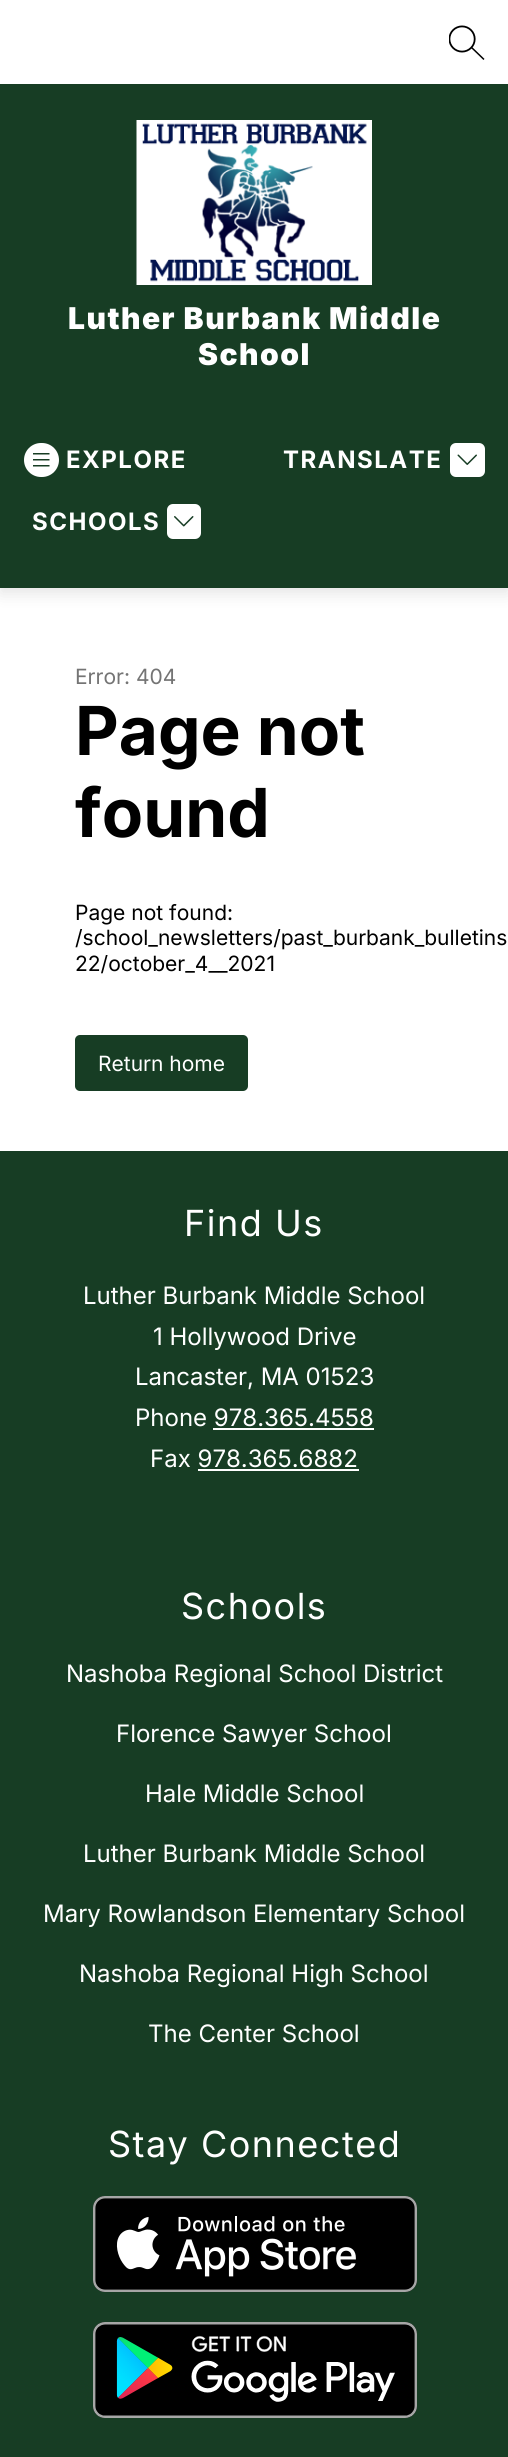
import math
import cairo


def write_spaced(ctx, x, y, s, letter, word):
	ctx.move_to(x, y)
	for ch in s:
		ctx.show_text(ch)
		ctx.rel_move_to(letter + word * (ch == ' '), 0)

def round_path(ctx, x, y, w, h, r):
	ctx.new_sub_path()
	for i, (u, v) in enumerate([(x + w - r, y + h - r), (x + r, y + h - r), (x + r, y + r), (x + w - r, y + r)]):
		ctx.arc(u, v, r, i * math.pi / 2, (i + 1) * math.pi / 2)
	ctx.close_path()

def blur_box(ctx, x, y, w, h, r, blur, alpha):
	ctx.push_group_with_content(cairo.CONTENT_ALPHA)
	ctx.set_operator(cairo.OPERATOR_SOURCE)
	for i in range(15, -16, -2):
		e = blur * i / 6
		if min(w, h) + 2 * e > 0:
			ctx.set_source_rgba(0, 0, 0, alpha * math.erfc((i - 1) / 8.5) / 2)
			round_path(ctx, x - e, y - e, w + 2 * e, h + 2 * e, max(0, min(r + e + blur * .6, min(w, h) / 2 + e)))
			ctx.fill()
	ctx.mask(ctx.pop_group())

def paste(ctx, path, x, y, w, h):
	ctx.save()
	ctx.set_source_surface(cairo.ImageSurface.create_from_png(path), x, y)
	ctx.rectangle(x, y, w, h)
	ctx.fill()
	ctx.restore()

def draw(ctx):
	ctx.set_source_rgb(1, 1, 1)
	ctx.paint()
	ctx.set_source_rgb(0, 0, 0)
	blur_box(ctx, 0, 6, 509, 588, 0, 7.5, 0.1)
	ctx.set_source_rgb(0.09, 0.239, 0.141)
	ctx.rectangle(0, 84, 508, 504)
	ctx.fill()
	ctx.set_source_rgb(1, 1, 1)
	ctx.rectangle(0, 0, 508, 84)
	ctx.fill()
	paste(ctx, 'media/1.png', 449, 25, 36, 35)
	paste(ctx, 'media/2.png', 136, 120, 236, 165)
	ctx.select_font_face('Inter Black')
	ctx.set_font_size(30)
	write_spaced(ctx, 68, 329, 'Luther Burbank Middle', 1.5, 0)
	write_spaced(ctx, 198, 365, 'School', 1.5, 0)
	paste(ctx, 'media/3.png', 24, 443, 35, 34)
	ctx.select_font_face('Inter', cairo.FONT_SLANT_NORMAL, cairo.FONT_WEIGHT_BOLD)
	ctx.set_font_size(24)
	write_spaced(ctx, 66, 468, 'EXPLORE', 1.5, 0)
	write_spaced(ctx, 32, 530, 'SCHOOLS', 1.5, 0)
	paste(ctx, 'media/4.png', 167, 504, 34, 35)
	write_spaced(ctx, 283, 468, 'TRANSLATE', 1.5, 0)
	paste(ctx, 'media/5.png', 450, 443, 35, 34)
	ctx.select_font_face('Inter')
	ctx.set_font_size(21)
	ctx.set_source_rgb(0.455, 0.455, 0.455)
	ctx.move_to(75, 684)
	ctx.show_text('Error: 404')
	ctx.select_font_face('Inter', cairo.FONT_SLANT_NORMAL, cairo.FONT_WEIGHT_BOLD)
	ctx.set_font_size(67.5)
	ctx.set_source_rgb(0, 0, 0)
	ctx.move_to(75, 755)
	ctx.show_text('Page not')
	ctx.move_to(75, 837)
	ctx.show_text('found')
	ctx.select_font_face('Inter')
	ctx.set_font_size(21)
	for x, y, s in [
		(75, 920, 'Page not found:'),
		(75, 945, '/school_newsletters/past_burbank_bulletins'),
		(75, 971, '22/october_4__2021'),
	]:
		ctx.move_to(x, y)
		ctx.show_text(s)
	ctx.set_source_rgb(0.09, 0.239, 0.141)
	round_path(ctx, 75, 1035, 173, 56, 5)
	ctx.fill()
	ctx.set_source_rgb(1, 1, 1)
	ctx.move_to(98, 1071)
	ctx.show_text('Return home')
	ctx.set_source_rgb(0.09, 0.239, 0.141)
	ctx.rectangle(0, 1151, 508, 1306)
	ctx.fill()
	ctx.set_font_size(36)
	ctx.set_source_rgb(1, 1, 1)
	write_spaced(ctx, 184, 1236, 'Find Us', 1.5, 0)
	ctx.set_font_size(24)
	for x, y, s in [
		(83, 1304, 'Luther Burbank Middle School'),
		(153, 1345, '1 Hollywood Drive'),
		(135, 1385, 'Lancaster, MA 01523'),
		(135, 1426, 'Phone 978.365.4558'),
	]:
		ctx.move_to(x, y)
		ctx.show_text(s)
	ctx.rectangle(213, 1428, 161, 2)
	ctx.fill()
	ctx.move_to(150, 1467)
	ctx.show_text('Fax 978.365.6882')
	ctx.rectangle(198, 1469, 161, 2)
	ctx.fill()
	ctx.set_font_size(36)
	write_spaced(ctx, 181, 1619, 'Schools', 1.5, 0)
	ctx.set_font_size(24)
	for x, y, s in [
		(66, 1682, 'Nashoba Regional School District'),
		(116, 1742, 'Florence Sawyer School'),
		(145, 1802, 'Hale Middle School'),
		(83, 1862, 'Luther Burbank Middle School'),
		(43, 1922, 'Mary Rowlandson Elementary School'),
		(79, 1982, 'Nashoba Regional High School'),
		(148, 2042, 'The Center School'),
	]:
		ctx.move_to(x, y)
		ctx.show_text(s)
	ctx.set_font_size(36)
	write_spaced(ctx, 108, 2157, 'Stay Connected', 1.5, 0)
	paste(ctx, 'media/6.png', 93, 2196, 324, 96)
	paste(ctx, 'media/7.png', 93, 2322, 324, 96)


surface = cairo.ImageSurface(cairo.FORMAT_RGB24, 508, 2457)
ctx = cairo.Context(surface)
options = cairo.FontOptions()
options.set_hint_metrics(cairo.HINT_METRICS_OFF)
options.set_hint_style(cairo.HINT_STYLE_NONE)
ctx.set_font_options(options)
ctx.set_miter_limit(4)
draw(ctx)
surface.write_to_png('image.png')
